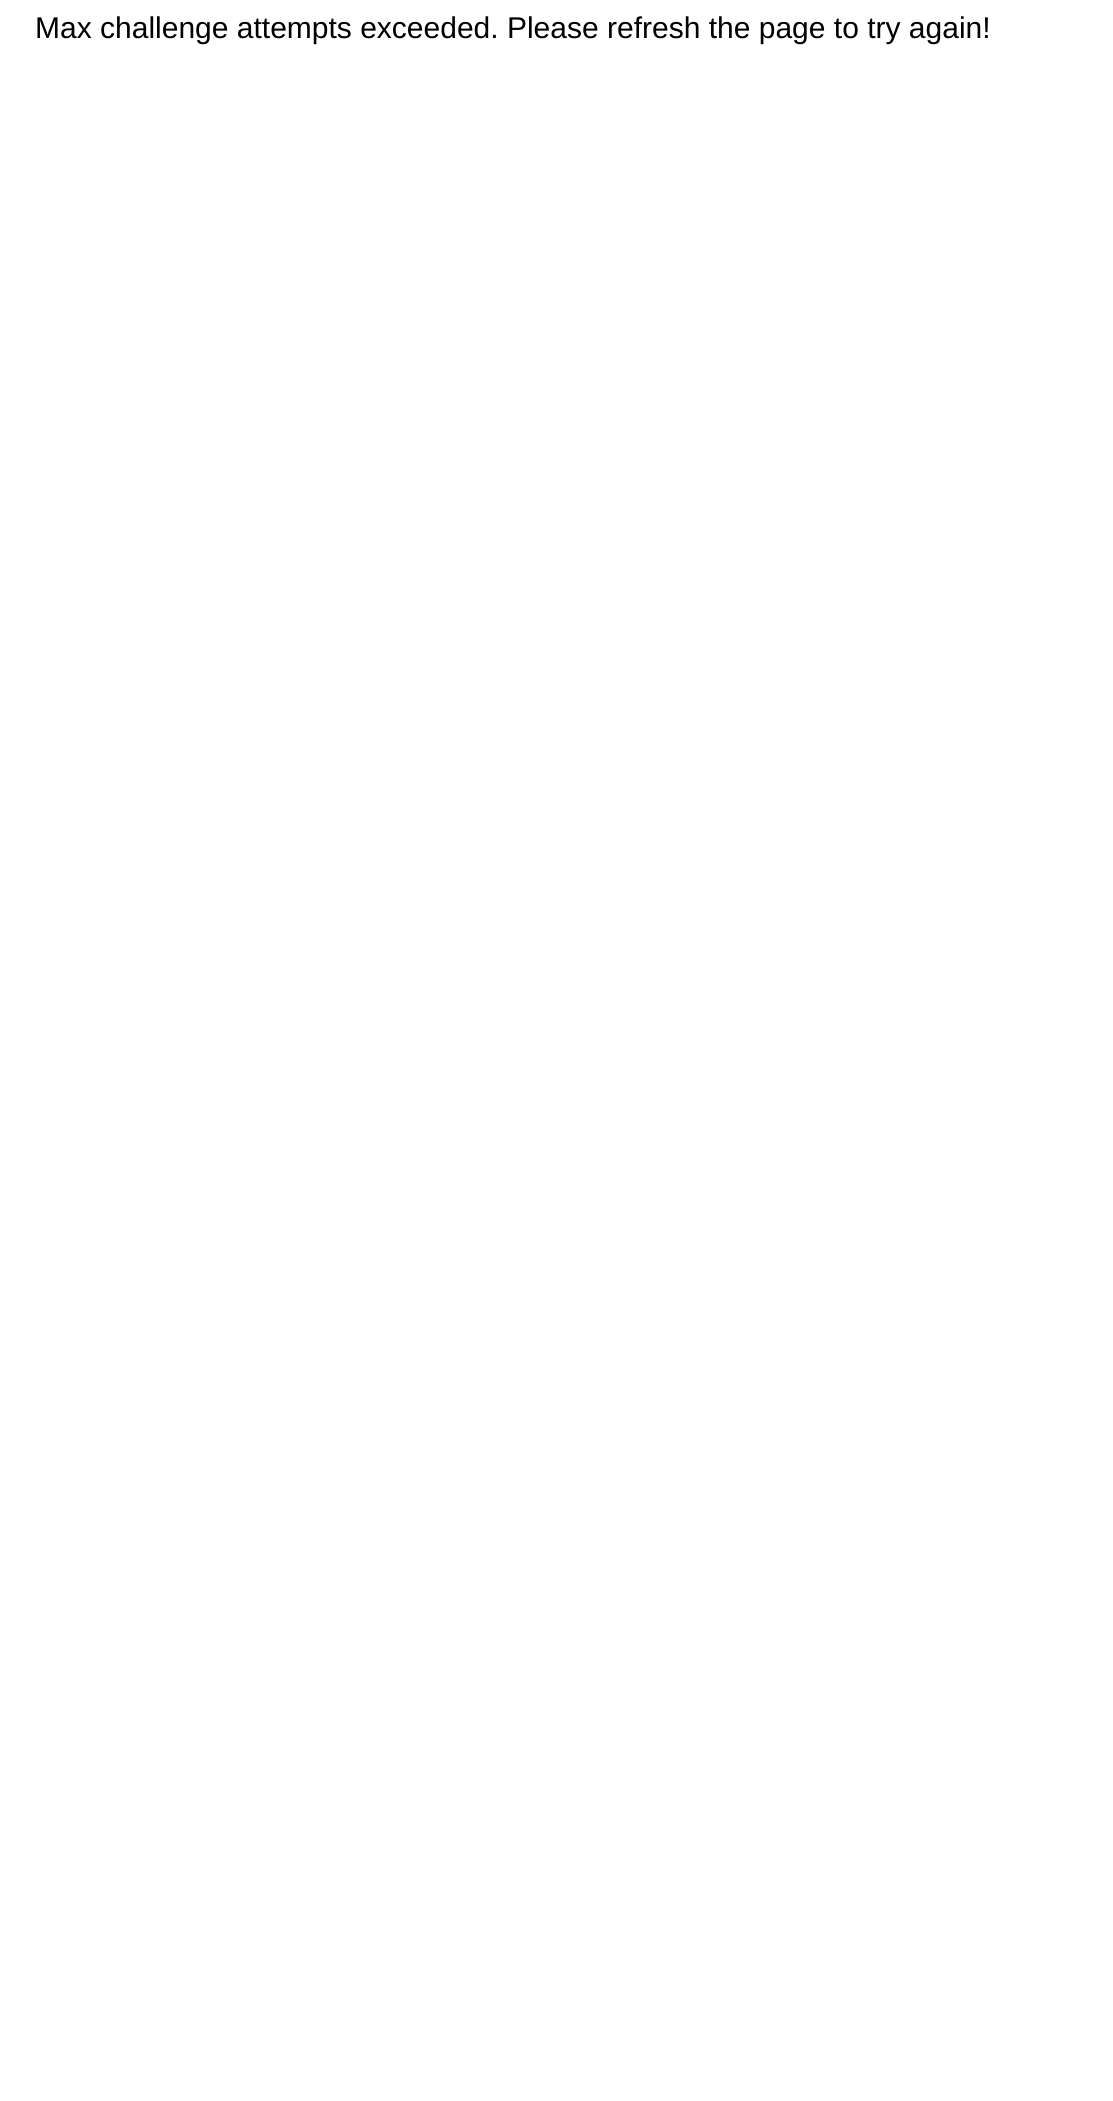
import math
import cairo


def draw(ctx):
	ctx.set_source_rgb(1, 1, 1)
	ctx.paint()
	ctx.select_font_face('Liberation Sans')
	ctx.set_font_size(30)
	ctx.set_source_rgb(0, 0, 0)
	ctx.move_to(35, 38)
	ctx.show_text('Max challenge attempts exceeded. Please refresh the page to try again!')


surface = cairo.ImageSurface(cairo.FORMAT_RGB24, 1113, 2101)
ctx = cairo.Context(surface)
options = cairo.FontOptions()
options.set_hint_metrics(cairo.HINT_METRICS_OFF)
options.set_hint_style(cairo.HINT_STYLE_NONE)
ctx.set_font_options(options)
ctx.set_miter_limit(4)
draw(ctx)
surface.write_to_png('image.png')
